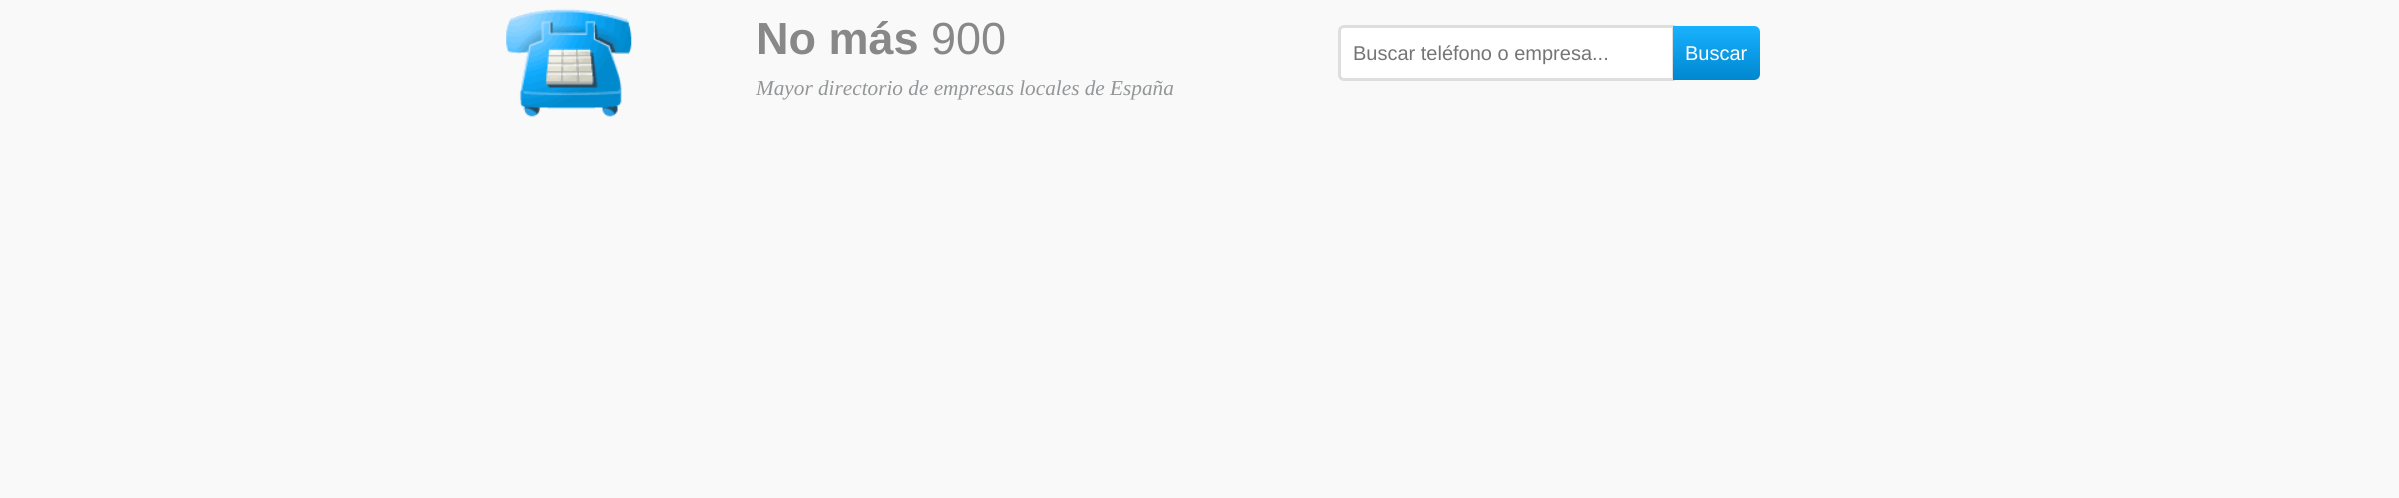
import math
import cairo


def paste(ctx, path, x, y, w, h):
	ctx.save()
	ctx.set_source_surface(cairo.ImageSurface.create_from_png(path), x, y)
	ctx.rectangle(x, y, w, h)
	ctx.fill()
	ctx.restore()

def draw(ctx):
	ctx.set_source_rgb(0.973, 0.973, 0.973)
	ctx.paint()
	paste(ctx, 'media/1.png', 506, 8, 126, 109)
	ctx.select_font_face('Liberation Sans', cairo.FONT_SLANT_NORMAL, cairo.FONT_WEIGHT_BOLD)
	ctx.set_font_size(45)
	ctx.set_source_rgb(0.533, 0.533, 0.533)
	ctx.move_to(756, 54)
	ctx.show_text('No más')
	ctx.select_font_face('Liberation Sans')
	ctx.move_to(931, 54)
	ctx.show_text('900')
	ctx.select_font_face('Liberation Serif', cairo.FONT_SLANT_ITALIC)
	ctx.set_font_size(21.25)
	ctx.set_source_rgb(0.576, 0.584, 0.592)
	ctx.move_to(756, 95)
	ctx.show_text('Mayor directorio de empresas locales de España')
	ctx.set_source_rgb(1, 1, 1)
	ctx.new_path()
	ctx.move_to(1344, 26.5)
	ctx.line_to(1673.5, 26.5)
	ctx.line_to(1673.5, 79.5)
	ctx.line_to(1344, 79.5)
	ctx.curve_to(1341.5, 79.5, 1339.5, 77.5, 1339.5, 75)
	ctx.line_to(1339.5, 31)
	ctx.curve_to(1339.5, 28.5, 1341.5, 26.5, 1344, 26.5)
	ctx.close_path()
	ctx.fill_preserve()
	ctx.set_source_rgb(0.871, 0.871, 0.871)
	ctx.set_line_width(3)
	ctx.stroke()
	ctx.select_font_face('Liberation Sans')
	ctx.set_font_size(20)
	ctx.set_source_rgb(0.459, 0.459, 0.459)
	ctx.move_to(1353, 60)
	ctx.show_text('Buscar teléfono o empresa...')
	gradient = cairo.LinearGradient(1673, 26, 1673, 80)
	gradient.add_color_stop_rgba(0, 0.098, 0.698, 1, 1)
	gradient.add_color_stop_rgba(1, 0, 0.529, 0.812, 1)
	ctx.set_source(gradient)
	ctx.new_path()
	ctx.move_to(1673, 26)
	ctx.line_to(1754, 26)
	ctx.curve_to(1757.5, 26, 1760, 28.5, 1760, 32)
	ctx.line_to(1760, 74)
	ctx.curve_to(1760, 77.5, 1757.5, 80, 1754, 80)
	ctx.line_to(1673, 80)
	ctx.close_path()
	ctx.fill()
	ctx.set_source_rgb(1, 1, 1)
	ctx.move_to(1685, 60)
	ctx.show_text('Buscar')


surface = cairo.ImageSurface(cairo.FORMAT_RGB24, 2399, 498)
ctx = cairo.Context(surface)
options = cairo.FontOptions()
options.set_hint_metrics(cairo.HINT_METRICS_OFF)
options.set_hint_style(cairo.HINT_STYLE_NONE)
ctx.set_font_options(options)
ctx.set_miter_limit(4)
draw(ctx)
surface.write_to_png('image.png')
